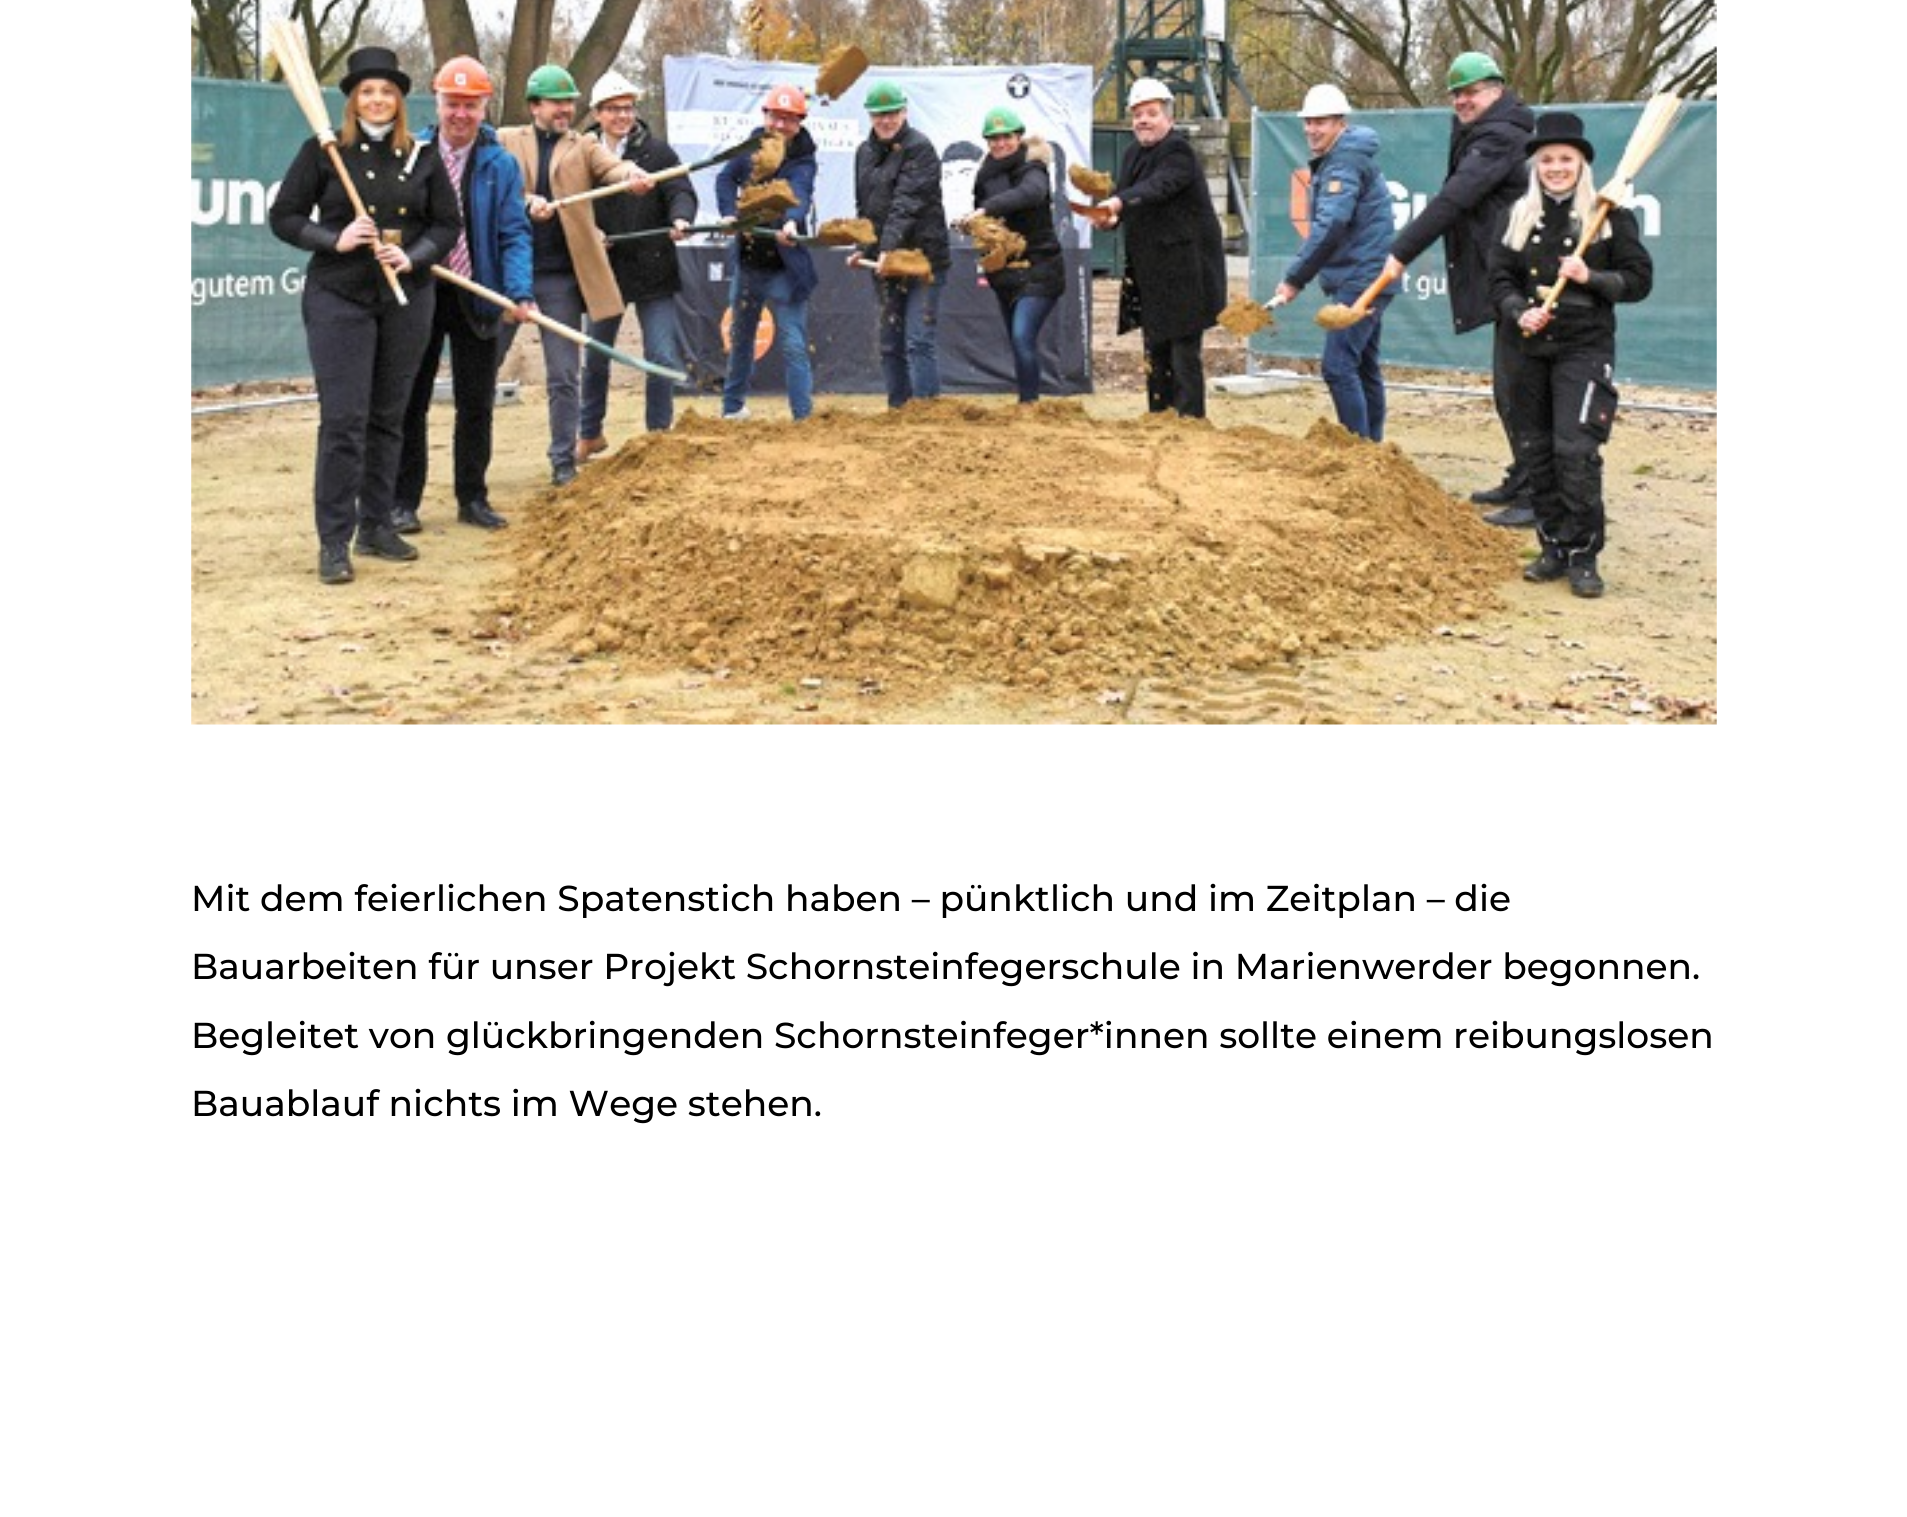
import math
import cairo


def paste(ctx, path, x, y, w, h):
	ctx.save()
	ctx.set_source_surface(cairo.ImageSurface.create_from_png(path), x, y)
	ctx.rectangle(x, y, w, h)
	ctx.fill()
	ctx.restore()

def draw(ctx):
	ctx.set_source_rgb(1, 1, 1)
	ctx.paint()
	paste(ctx, 'media/1.png', 191, 0, 1526, 725)
	ctx.select_font_face('Montserrat Thin')
	ctx.set_font_size(36)
	ctx.set_source_rgb(0, 0, 0)
	for x, y, s in [
		(191, 911, 'Mit dem feierlichen Spatenstich haben – pünktlich und im Zeitplan – die'),
		(191, 979, 'Bauarbeiten für unser Projekt Schornsteinfegerschule in Marienwerder begonnen.'),
		(191, 1048, 'Begleitet von glückbringenden Schornsteinfeger*innen sollte einem reibungslosen'),
		(191, 1116, 'Bauablauf nichts im Wege stehen.'),
	]:
		ctx.move_to(x, y)
		ctx.show_text(s)


surface = cairo.ImageSurface(cairo.FORMAT_RGB24, 1907, 1517)
ctx = cairo.Context(surface)
options = cairo.FontOptions()
options.set_hint_metrics(cairo.HINT_METRICS_OFF)
options.set_hint_style(cairo.HINT_STYLE_NONE)
ctx.set_font_options(options)
ctx.set_miter_limit(4)
draw(ctx)
surface.write_to_png('image.png')
